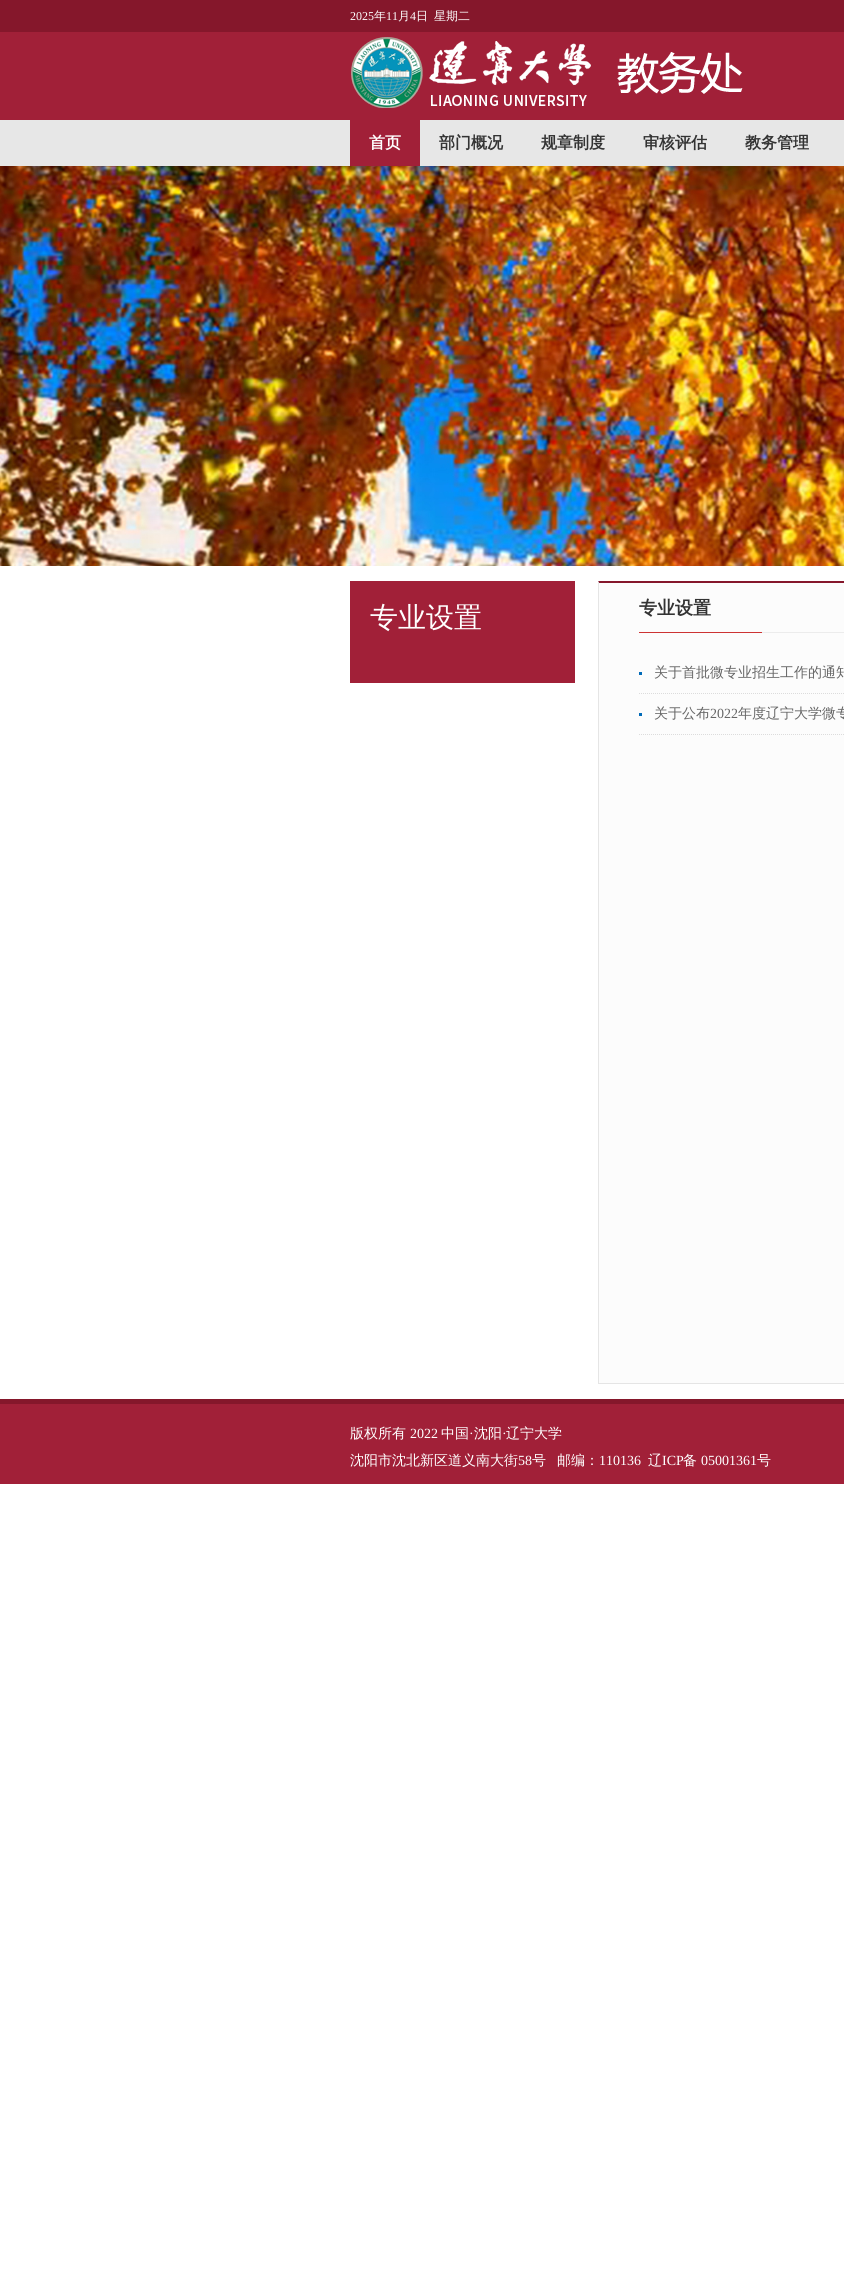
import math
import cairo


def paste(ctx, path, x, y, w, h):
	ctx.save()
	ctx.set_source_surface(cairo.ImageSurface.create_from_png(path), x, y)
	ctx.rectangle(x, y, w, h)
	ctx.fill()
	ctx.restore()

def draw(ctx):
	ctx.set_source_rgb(1, 1, 1)
	ctx.paint()
	ctx.set_source_rgb(0.631, 0.125, 0.22)
	ctx.rectangle(0, 32, 844, 88)
	ctx.fill()
	ctx.set_source_rgb(0.522, 0.09, 0.169)
	ctx.rectangle(0, 0, 844, 32)
	ctx.fill()
	ctx.select_font_face('Liberation Serif')
	ctx.set_font_size(12)
	ctx.set_source_rgb(1, 1, 1)
	ctx.move_to(350, 20)
	ctx.show_text('2025')
	ctx.select_font_face('WenQuanYi Zen Hei Medium')
	ctx.move_to(374, 20)
	ctx.show_text('年')
	ctx.select_font_face('Liberation Serif')
	ctx.move_to(386, 20)
	ctx.show_text('11')
	ctx.select_font_face('WenQuanYi Zen Hei Medium')
	ctx.move_to(398, 20)
	ctx.show_text('月')
	ctx.select_font_face('Liberation Serif')
	ctx.move_to(410, 20)
	ctx.show_text('4')
	ctx.select_font_face('WenQuanYi Zen Hei Medium')
	ctx.move_to(416, 20)
	ctx.show_text('日')
	ctx.move_to(434, 20)
	ctx.show_text('星期二')
	paste(ctx, 'media/1.png', 351, 37, 392, 71)
	ctx.set_source_rgb(0.906, 0.906, 0.906)
	ctx.rectangle(0, 120, 844, 46)
	ctx.fill()
	ctx.set_source_rgb(0.631, 0.125, 0.22)
	ctx.rectangle(350, 120, 70, 46)
	ctx.fill()
	ctx.select_font_face('WenQuanYi Zen Hei', cairo.FONT_SLANT_NORMAL, cairo.FONT_WEIGHT_BOLD)
	ctx.set_font_size(16)
	ctx.set_source_rgb(1, 1, 1)
	ctx.move_to(369, 148)
	ctx.show_text('首页')
	ctx.set_source_rgb(0.2, 0.2, 0.2)
	for x, y, s in [
		(439, 148, '部门概况'),
		(541, 148, '规章制度'),
		(643, 148, '审核评估'),
		(745, 148, '教务管理'),
	]:
		ctx.move_to(x, y)
		ctx.show_text(s)
	paste(ctx, 'media/2.png', 0, 166, 844, 400)
	ctx.set_source_rgb(0.631, 0.125, 0.22)
	ctx.rectangle(350, 581, 225, 102)
	ctx.fill()
	ctx.select_font_face('WenQuanYi Zen Hei Medium')
	ctx.set_font_size(28)
	ctx.set_source_rgb(1, 1, 1)
	ctx.move_to(370, 627)
	ctx.show_text('专业设置')
	ctx.set_source_rgb(0.988, 0.988, 0.988)
	ctx.rectangle(599, 583, 245, 800)
	ctx.fill()
	ctx.set_source_rgb(0.522, 0.09, 0.169)
	ctx.new_path()
	ctx.move_to(598, 581)
	ctx.line_to(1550, 581)
	ctx.line_to(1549, 583)
	ctx.line_to(599, 583)
	ctx.close_path()
	ctx.fill()
	ctx.set_source_rgb(0.898, 0.898, 0.898)
	ctx.rectangle(598, 1383, 246, 1)
	ctx.fill()
	ctx.new_path()
	ctx.move_to(598, 1384)
	ctx.line_to(598, 581)
	ctx.line_to(599, 583)
	ctx.line_to(599, 1383)
	ctx.close_path()
	ctx.fill()
	paste(ctx, 'media/3.png', 639, 632, 205, 1)
	ctx.select_font_face('WenQuanYi Zen Hei', cairo.FONT_SLANT_NORMAL, cairo.FONT_WEIGHT_BOLD)
	ctx.set_font_size(18)
	ctx.set_source_rgb(0.2, 0.2, 0.2)
	ctx.move_to(639, 614)
	ctx.show_text('专业设置')
	ctx.set_source_rgb(0, 0.416, 0.722)
	ctx.rectangle(639, 672, 3, 3)
	ctx.fill()
	ctx.new_path()
	ctx.move_to(639, 693.5)
	ctx.line_to(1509, 693.5)
	ctx.set_source_rgb(0.863, 0.863, 0.863)
	ctx.set_line_width(1)
	ctx.set_dash([1, 1])
	ctx.stroke()
	ctx.select_font_face('WenQuanYi Zen Hei Medium')
	ctx.set_font_size(14)
	ctx.set_source_rgb(0.4, 0.4, 0.4)
	ctx.move_to(654, 677)
	ctx.show_text('关于首批微专业招生工作的通知')
	ctx.set_source_rgb(0, 0.416, 0.722)
	ctx.rectangle(639, 713, 3, 3)
	ctx.fill()
	ctx.new_path()
	ctx.move_to(639, 734.5)
	ctx.line_to(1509, 734.5)
	ctx.set_source_rgb(0.863, 0.863, 0.863)
	ctx.stroke()
	ctx.set_source_rgb(0.4, 0.4, 0.4)
	ctx.move_to(654, 718)
	ctx.show_text('关于公布')
	ctx.select_font_face('Liberation Serif')
	ctx.move_to(710, 718)
	ctx.show_text('2022')
	ctx.select_font_face('WenQuanYi Zen Hei Medium')
	ctx.move_to(738, 718)
	ctx.show_text('年度辽宁大学微专')
	ctx.set_source_rgb(0.631, 0.125, 0.22)
	ctx.rectangle(0, 1404, 844, 80)
	ctx.fill()
	ctx.set_source_rgb(0.522, 0.09, 0.169)
	ctx.rectangle(0, 1399, 844, 5)
	ctx.fill()
	ctx.set_source_rgb(1, 1, 1)
	ctx.move_to(350, 1438)
	ctx.show_text('版权所有')
	ctx.select_font_face('Liberation Serif')
	ctx.move_to(410, 1438)
	ctx.show_text('2022')
	ctx.select_font_face('WenQuanYi Zen Hei Medium')
	ctx.move_to(441, 1438)
	ctx.show_text('中国')
	ctx.select_font_face('Liberation Serif')
	ctx.move_to(469, 1438)
	ctx.show_text('·')
	ctx.select_font_face('WenQuanYi Zen Hei Medium')
	ctx.move_to(474, 1438)
	ctx.show_text('沈阳')
	ctx.select_font_face('Liberation Serif')
	ctx.move_to(502, 1438)
	ctx.show_text('·')
	ctx.select_font_face('WenQuanYi Zen Hei Medium')
	ctx.move_to(506, 1438)
	ctx.show_text('辽宁大学')
	ctx.move_to(350, 1465)
	ctx.show_text('沈阳市沈北新区道义南大街')
	ctx.select_font_face('Liberation Serif')
	ctx.move_to(518, 1465)
	ctx.show_text('58')
	ctx.select_font_face('WenQuanYi Zen Hei Medium')
	ctx.move_to(532, 1465)
	ctx.show_text('号')
	ctx.move_to(557, 1465)
	ctx.show_text('邮编：')
	ctx.select_font_face('Liberation Serif')
	ctx.move_to(599, 1465)
	ctx.show_text('110136')
	ctx.select_font_face('WenQuanYi Zen Hei Medium')
	ctx.move_to(648, 1465)
	ctx.show_text('辽')
	ctx.select_font_face('Liberation Serif')
	ctx.move_to(662, 1465)
	ctx.show_text('ICP')
	ctx.select_font_face('WenQuanYi Zen Hei Medium')
	ctx.move_to(683, 1465)
	ctx.show_text('备')
	ctx.select_font_face('Liberation Serif')
	ctx.move_to(701, 1465)
	ctx.show_text('05001361')
	ctx.select_font_face('WenQuanYi Zen Hei Medium')
	ctx.move_to(757, 1465)
	ctx.show_text('号')


surface = cairo.ImageSurface(cairo.FORMAT_RGB24, 844, 2294)
ctx = cairo.Context(surface)
options = cairo.FontOptions()
options.set_hint_metrics(cairo.HINT_METRICS_OFF)
options.set_hint_style(cairo.HINT_STYLE_NONE)
ctx.set_font_options(options)
ctx.set_miter_limit(4)
draw(ctx)
surface.write_to_png('image.png')
